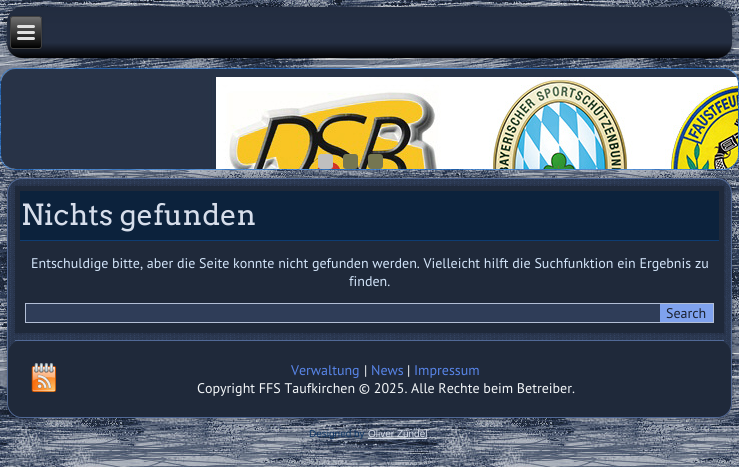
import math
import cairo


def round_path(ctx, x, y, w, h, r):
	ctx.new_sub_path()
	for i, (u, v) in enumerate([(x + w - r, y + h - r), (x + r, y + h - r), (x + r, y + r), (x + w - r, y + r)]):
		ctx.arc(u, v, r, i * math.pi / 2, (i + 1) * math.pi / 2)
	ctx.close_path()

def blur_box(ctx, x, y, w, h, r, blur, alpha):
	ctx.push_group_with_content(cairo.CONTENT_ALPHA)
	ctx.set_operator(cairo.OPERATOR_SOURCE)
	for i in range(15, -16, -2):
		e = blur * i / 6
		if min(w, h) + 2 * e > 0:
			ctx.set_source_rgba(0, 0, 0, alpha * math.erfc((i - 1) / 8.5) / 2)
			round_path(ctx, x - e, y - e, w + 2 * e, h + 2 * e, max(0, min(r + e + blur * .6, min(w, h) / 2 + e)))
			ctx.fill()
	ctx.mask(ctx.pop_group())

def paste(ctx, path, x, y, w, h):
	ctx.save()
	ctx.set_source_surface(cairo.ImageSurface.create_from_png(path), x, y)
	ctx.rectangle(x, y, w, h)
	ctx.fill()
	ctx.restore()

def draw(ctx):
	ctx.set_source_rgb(1, 1, 1)
	ctx.paint()
	paste(ctx, 'media/1.png', 0, 0, 739, 467)
	ctx.set_source_rgb(0, 0, 0)
	blur_box(ctx, 5, 5, 729, 55, 17, 1.5, 0.15)
	gradient = cairo.LinearGradient(370, 7, 370, 58)
	gradient.add_color_stop_rgba(0, 0.133, 0.173, 0.247, 1)
	gradient.add_color_stop_rgba(0.4, 0.141, 0.18, 0.259, 1)
	gradient.add_color_stop_rgba(0.7, 0.141, 0.18, 0.259, 1)
	gradient.add_color_stop_rgba(1, 0.008, 0.008, 0.012, 1)
	ctx.set_source(gradient)
	round_path(ctx, 7, 7, 725, 51, 15)
	ctx.fill()
	ctx.set_source_rgb(0, 0, 0)
	blur_box(ctx, 10, 16, 32, 33, 3, 1.5, 0.2)
	ctx.save()
	round_path(ctx, 10, 16, 32, 33, 3)
	ctx.clip()
	gradient = cairo.LinearGradient(26, 17, 26, 48)
	gradient.add_color_stop_rgba(0, 0.439, 0.439, 0.439, 1)
	gradient.add_color_stop_rgba(1, 0, 0, 0, 1)
	ctx.set_source(gradient)
	ctx.rectangle(10, 17, 32, 31)
	ctx.fill()
	ctx.restore()
	round_path(ctx, 10.5, 16.5, 31, 32, 2.5)
	ctx.set_source_rgb(0.251, 0.251, 0.251)
	ctx.set_line_width(1)
	ctx.stroke()
	ctx.set_source_rgb(0.878, 0.878, 0.878)
	round_path(ctx, 17, 25, 18, 3, 1.5)
	ctx.fill()
	round_path(ctx, 17, 31, 18, 3, 1.5)
	ctx.fill()
	round_path(ctx, 17, 37, 18, 3, 1.5)
	ctx.fill()
	round_path(ctx, 0.5, 68.5, 738, 101, 14.5)
	ctx.set_source_rgba(0.122, 0.478, 0.89, 0.6)
	ctx.stroke()
	paste(ctx, 'media/2.png', 1, 69, 737, 100)
	ctx.set_source_rgb(0.749, 0.749, 0.749)
	round_path(ctx, 318.5, 154.5, 14, 14, 2.5)
	ctx.fill_preserve()
	ctx.stroke()
	ctx.set_source_rgb(0.459, 0.463, 0.318)
	round_path(ctx, 343, 154, 15, 15, 3)
	ctx.fill()
	round_path(ctx, 368, 154, 15, 15, 3)
	ctx.fill()
	ctx.set_source_rgb(0, 0, 0)
	blur_box(ctx, 5, 176, 729, 244, 17, 1.5, 0.15)
	ctx.set_source_rgb(0.184, 0.239, 0.345)
	round_path(ctx, 7, 178, 725, 240, 15)
	ctx.fill()
	paste(ctx, 'media/3.png', 7, 178, 725, 240)
	round_path(ctx, 7.5, 178.5, 724, 239, 14.5)
	ctx.set_source_rgb(0.318, 0.412, 0.588)
	ctx.stroke()
	ctx.set_source_rgb(0, 0, 0)
	blur_box(ctx, 14, 185, 711, 149, 0, 1, 0.15)
	ctx.set_source_rgb(0.122, 0.161, 0.227)
	ctx.rectangle(15, 186, 709, 147)
	ctx.fill()
	ctx.set_source_rgb(0.047, 0.133, 0.235)
	ctx.rectangle(20, 191, 699, 49)
	ctx.fill()
	ctx.set_source_rgb(0.055, 0.239, 0.451)
	ctx.rectangle(20, 240, 699, 1)
	ctx.fill()
	ctx.select_font_face('Arvo')
	ctx.set_font_size(29)
	ctx.set_source_rgb(0.843, 0.871, 0.918)
	ctx.move_to(21, 225)
	ctx.show_text('Nichts gefunden')
	ctx.select_font_face('PT Sans')
	ctx.set_font_size(14)
	ctx.set_source_rgb(0.827, 0.898, 0.98)
	ctx.move_to(31, 268)
	ctx.show_text('Entschuldige bitte, aber die Seite konnte nicht gefunden werden. Vielleicht hilft die Suchfunktion ein Ergebnis zu')
	ctx.move_to(349, 286)
	ctx.show_text('finden.')
	ctx.set_source_rgb(0.184, 0.239, 0.345)
	ctx.rectangle(26, 304, 634, 18)
	ctx.fill()
	ctx.rectangle(25.5, 303.5, 688, 19)
	ctx.set_source_rgb(0.702, 0.749, 0.839)
	ctx.stroke()
	ctx.set_source_rgb(0.498, 0.635, 0.933)
	ctx.rectangle(660, 304, 53, 18)
	ctx.fill()
	ctx.set_source_rgb(0.102, 0.129, 0.184)
	ctx.move_to(666, 318)
	ctx.show_text('Search')
	ctx.set_source_rgb(0.122, 0.161, 0.227)
	round_path(ctx, 8, 340, 723, 77, 14)
	ctx.fill()
	ctx.set_source_rgb(0.318, 0.412, 0.588)
	ctx.rectangle(15, 340, 709, 1)
	ctx.fill()
	paste(ctx, 'media/4.png', 31, 363, 25, 29)
	ctx.set_source_rgb(0.345, 0.522, 0.91)
	ctx.move_to(291, 375)
	ctx.show_text('Verwaltung')
	ctx.set_source_rgb(0.957, 0.965, 0.976)
	ctx.move_to(364, 375)
	ctx.show_text('|')
	ctx.set_source_rgb(0.345, 0.522, 0.91)
	ctx.move_to(371, 375)
	ctx.show_text('News')
	ctx.set_source_rgb(0.957, 0.965, 0.976)
	ctx.move_to(407, 375)
	ctx.show_text('|')
	ctx.set_source_rgb(0.345, 0.522, 0.91)
	ctx.move_to(414, 375)
	ctx.show_text('Impressum')
	ctx.set_source_rgb(0.957, 0.965, 0.976)
	ctx.move_to(197, 393)
	ctx.show_text('Copyright FFS Taufkirchen © 2025. Alle Rechte beim Betreiber.')
	ctx.select_font_face('Liberation Sans')
	ctx.set_font_size(10)
	ctx.set_source_rgb(0.047, 0.208, 0.392)
	ctx.move_to(309, 437)
	ctx.show_text('Designed by')
	ctx.set_source_rgb(0.843, 0.871, 0.918)
	ctx.move_to(368, 437)
	ctx.show_text('Oliver Zündel')
	ctx.rectangle(368, 438, 59, 1)
	ctx.fill()


surface = cairo.ImageSurface(cairo.FORMAT_RGB24, 739, 467)
ctx = cairo.Context(surface)
options = cairo.FontOptions()
options.set_hint_metrics(cairo.HINT_METRICS_OFF)
options.set_hint_style(cairo.HINT_STYLE_NONE)
ctx.set_font_options(options)
ctx.set_miter_limit(4)
draw(ctx)
surface.write_to_png('image.png')
